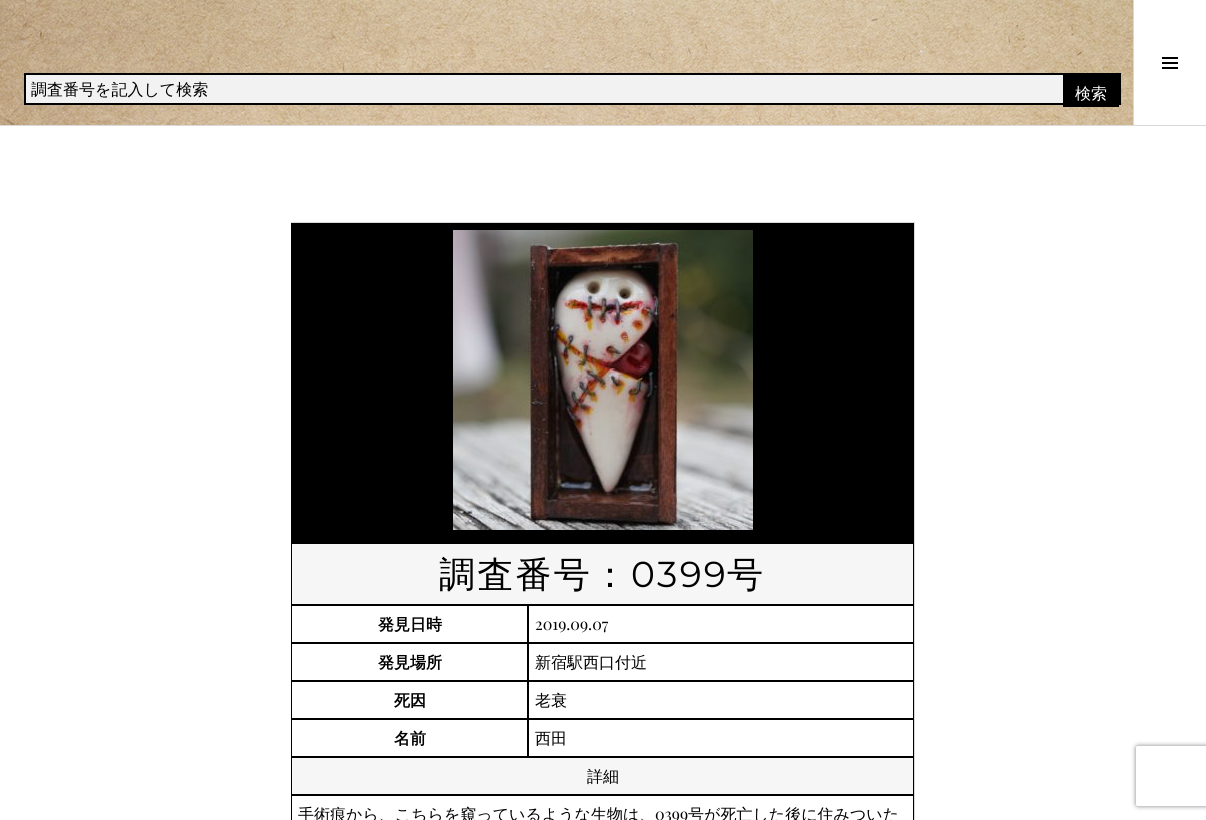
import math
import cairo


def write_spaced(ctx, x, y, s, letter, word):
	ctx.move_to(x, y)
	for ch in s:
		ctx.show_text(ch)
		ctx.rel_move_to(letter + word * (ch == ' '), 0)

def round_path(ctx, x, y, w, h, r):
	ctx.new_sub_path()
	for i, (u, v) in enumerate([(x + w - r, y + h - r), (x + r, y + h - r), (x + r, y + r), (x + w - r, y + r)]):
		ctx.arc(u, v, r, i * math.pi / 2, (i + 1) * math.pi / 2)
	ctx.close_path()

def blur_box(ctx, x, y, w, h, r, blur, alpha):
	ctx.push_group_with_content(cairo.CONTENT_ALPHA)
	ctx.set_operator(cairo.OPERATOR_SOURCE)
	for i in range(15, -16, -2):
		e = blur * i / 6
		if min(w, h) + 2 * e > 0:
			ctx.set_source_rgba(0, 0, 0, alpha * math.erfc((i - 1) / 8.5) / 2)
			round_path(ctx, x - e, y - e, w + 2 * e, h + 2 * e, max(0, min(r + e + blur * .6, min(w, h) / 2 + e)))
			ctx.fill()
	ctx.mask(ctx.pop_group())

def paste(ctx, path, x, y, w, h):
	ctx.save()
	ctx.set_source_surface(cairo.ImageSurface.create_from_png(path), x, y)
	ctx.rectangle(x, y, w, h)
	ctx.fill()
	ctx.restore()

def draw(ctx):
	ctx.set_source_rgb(1, 1, 1)
	ctx.paint()
	paste(ctx, 'media/1.png', 0, 0, 1133, 125)
	ctx.set_source_rgb(0.851, 0.851, 0.851)
	ctx.rectangle(0, 125, 1206, 1)
	ctx.fill()
	ctx.rectangle(25, 74, 1095, 30)
	ctx.set_source_rgb(0, 0, 0)
	ctx.stroke()
	ctx.set_source_rgb(0.949, 0.949, 0.949)
	ctx.rectangle(26, 75, 1037, 28)
	ctx.fill()
	ctx.select_font_face('WenQuanYi Zen Hei Medium')
	ctx.set_font_size(16)
	ctx.set_source_rgb(0, 0, 0)
	ctx.move_to(31, 95)
	ctx.show_text('調査番号を記入して検索')
	ctx.rectangle(1063, 75, 56, 32)
	ctx.fill()
	ctx.set_source_rgb(1, 1, 1)
	ctx.move_to(1075, 99)
	ctx.show_text('検索')
	ctx.set_source_rgb(0.851, 0.851, 0.851)
	ctx.rectangle(1133, 0, 1, 125)
	ctx.fill()
	paste(ctx, 'media/2.png', 1162, 57, 16, 12)
	ctx.rectangle(291, 222, 624, 1)
	ctx.rectangle(914, 222, 1, 598)
	ctx.fill()
	ctx.set_source_rgb(0, 0, 0)
	ctx.rectangle(291, 223, 623, 320)
	ctx.fill()
	paste(ctx, 'media/3.png', 453, 230, 300, 300)
	ctx.set_source_rgb(0.961, 0.961, 0.961)
	ctx.rectangle(291.5, 543.5, 622, 61)
	ctx.fill_preserve()
	ctx.set_source_rgb(0, 0, 0)
	ctx.set_line_width(1)
	ctx.stroke()
	ctx.set_font_size(36)
	write_spaced(ctx, 439, 587, '調査番号：', 2.25, 0)
	ctx.select_font_face('Montserrat')
	write_spaced(ctx, 631, 587, '0399', 2.25, 0)
	ctx.select_font_face('WenQuanYi Zen Hei Medium')
	write_spaced(ctx, 727, 587, '号', 2.25, 0)
	ctx.rectangle(291.5, 605.5, 236, 37)
	ctx.stroke()
	ctx.select_font_face('WenQuanYi Zen Hei', cairo.FONT_SLANT_NORMAL, cairo.FONT_WEIGHT_BOLD)
	ctx.set_font_size(16)
	ctx.move_to(378, 630)
	ctx.show_text('発見日時')
	ctx.rectangle(528.5, 605.5, 385, 37)
	ctx.stroke()
	ctx.select_font_face('Playfair Display')
	ctx.move_to(535, 630)
	ctx.show_text('2019.09.07')
	ctx.rectangle(291.5, 643.5, 236, 37)
	ctx.stroke()
	ctx.select_font_face('WenQuanYi Zen Hei', cairo.FONT_SLANT_NORMAL, cairo.FONT_WEIGHT_BOLD)
	ctx.move_to(378, 668)
	ctx.show_text('発見場所')
	ctx.rectangle(528.5, 643.5, 385, 37)
	ctx.stroke()
	ctx.select_font_face('WenQuanYi Zen Hei Medium')
	ctx.move_to(535, 668)
	ctx.show_text('新宿駅西口付近')
	ctx.rectangle(291.5, 681.5, 236, 37)
	ctx.stroke()
	ctx.select_font_face('WenQuanYi Zen Hei', cairo.FONT_SLANT_NORMAL, cairo.FONT_WEIGHT_BOLD)
	ctx.move_to(394, 706)
	ctx.show_text('死因')
	ctx.rectangle(528.5, 681.5, 385, 37)
	ctx.stroke()
	ctx.select_font_face('WenQuanYi Zen Hei Medium')
	ctx.move_to(535, 706)
	ctx.show_text('老衰')
	ctx.rectangle(291.5, 719.5, 236, 37)
	ctx.stroke()
	ctx.select_font_face('WenQuanYi Zen Hei', cairo.FONT_SLANT_NORMAL, cairo.FONT_WEIGHT_BOLD)
	ctx.move_to(394, 744)
	ctx.show_text('名前')
	ctx.rectangle(528.5, 719.5, 385, 37)
	ctx.stroke()
	ctx.select_font_face('WenQuanYi Zen Hei Medium')
	ctx.move_to(535, 744)
	ctx.show_text('西田')
	ctx.set_source_rgb(0.961, 0.961, 0.961)
	ctx.rectangle(291.5, 757.5, 622, 37)
	ctx.fill_preserve()
	ctx.set_source_rgb(0, 0, 0)
	ctx.stroke()
	ctx.move_to(587, 782)
	ctx.show_text('詳細')
	ctx.rectangle(291.5, 795.5, 622, 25)
	ctx.stroke()
	ctx.move_to(298, 820)
	ctx.show_text('手術痕から、こちらを窺っているような生物は、')
	ctx.select_font_face('Playfair Display')
	ctx.move_to(655, 820)
	ctx.show_text('0399')
	ctx.select_font_face('WenQuanYi Zen Hei Medium')
	ctx.move_to(688, 820)
	ctx.show_text('号が死亡した後に住みついた')
	ctx.save()
	ctx.set_fill_rule(cairo.FILL_RULE_EVEN_ODD)
	ctx.new_path()
	ctx.move_to(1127, 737)
	ctx.line_to(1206, 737)
	ctx.line_to(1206, 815)
	ctx.line_to(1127, 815)
	ctx.close_path()
	ctx.move_to(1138, 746)
	ctx.line_to(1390, 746)
	ctx.curve_to(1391, 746, 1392, 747, 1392, 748)
	ctx.line_to(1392, 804)
	ctx.curve_to(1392, 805, 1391, 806, 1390, 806)
	ctx.line_to(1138, 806)
	ctx.curve_to(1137, 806, 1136, 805, 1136, 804)
	ctx.line_to(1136, 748)
	ctx.curve_to(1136, 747, 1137, 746, 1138, 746)
	ctx.close_path()
	ctx.clip()
	ctx.set_source_rgb(0.502, 0.502, 0.502)
	blur_box(ctx, 1136, 746, 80, 60, 2, 2.5, 1)
	ctx.restore()


surface = cairo.ImageSurface(cairo.FORMAT_RGB24, 1206, 820)
ctx = cairo.Context(surface)
options = cairo.FontOptions()
options.set_hint_metrics(cairo.HINT_METRICS_OFF)
options.set_hint_style(cairo.HINT_STYLE_NONE)
ctx.set_font_options(options)
ctx.set_miter_limit(4)
draw(ctx)
surface.write_to_png('image.png')
